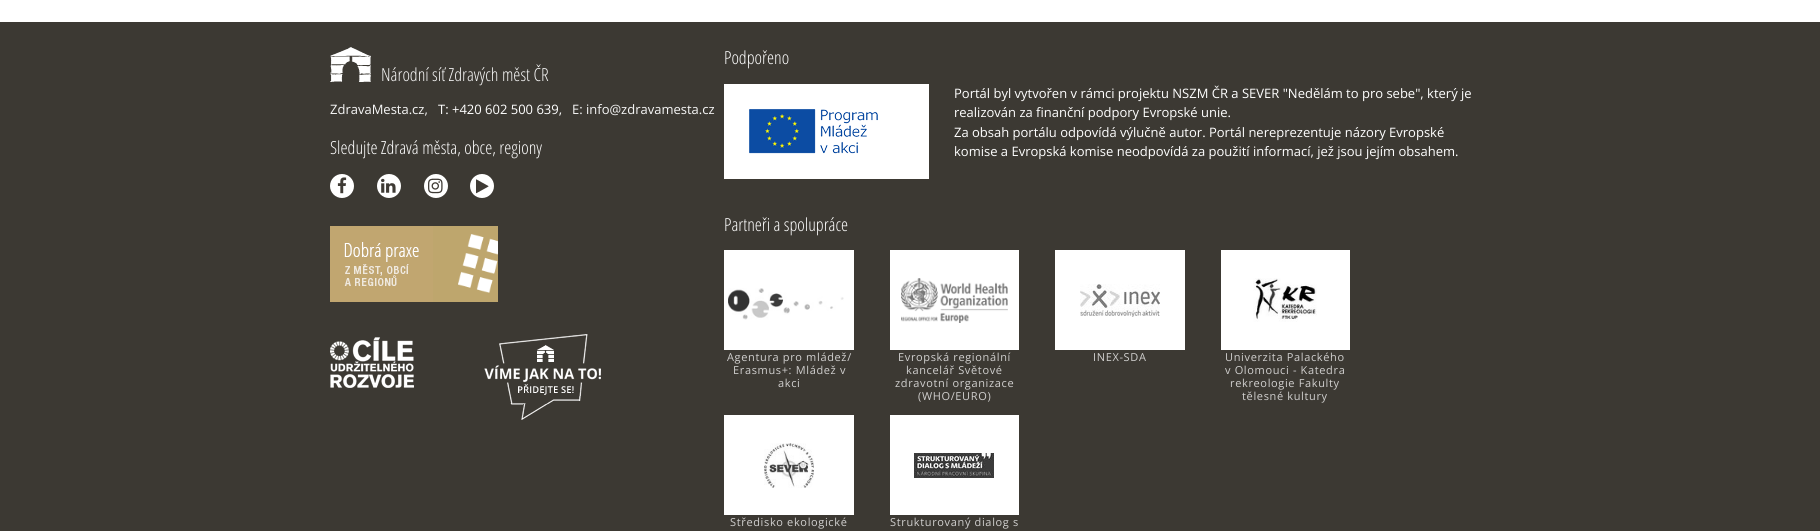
import math
import cairo


def write_spaced(ctx, x, y, s, letter, word):
	ctx.move_to(x, y)
	for ch in s:
		ctx.show_text(ch)
		ctx.rel_move_to(letter + word * (ch == ' '), 0)

def paste(ctx, path, x, y, w, h):
	ctx.save()
	ctx.set_source_surface(cairo.ImageSurface.create_from_png(path), x, y)
	ctx.rectangle(x, y, w, h)
	ctx.fill()
	ctx.restore()

def draw(ctx):
	ctx.set_source_rgb(1, 1, 1)
	ctx.paint()
	ctx.set_source_rgb(0.235, 0.224, 0.2)
	ctx.rectangle(0, 22, 1820, 509)
	ctx.fill()
	paste(ctx, 'media/1.png', 330, 47, 41, 35)
	ctx.select_font_face('Open Sans Condensed Light')
	ctx.set_font_size(18)
	ctx.set_source_rgb(0.965, 0.965, 0.965)
	ctx.move_to(381, 81)
	ctx.show_text('Národní síť Zdravých měst ČR')
	ctx.select_font_face('Open Sans')
	ctx.set_font_size(13)
	ctx.move_to(330, 114)
	ctx.show_text('ZdravaMesta.cz,')
	ctx.set_source_rgb(1, 1, 1)
	ctx.move_to(438, 114)
	ctx.show_text('T: +420 602 500 639,')
	ctx.set_source_rgb(0.965, 0.965, 0.965)
	ctx.move_to(572, 114)
	ctx.show_text('E: info@zdravamesta.cz')
	ctx.select_font_face('Open Sans Condensed Light')
	ctx.set_font_size(18)
	ctx.set_source_rgb(1, 1, 1)
	ctx.move_to(330, 154)
	ctx.show_text('Sledujte Zdravá města, obce, regiony')
	ctx.new_path()
	ctx.arc(342, 186, 12, 0, 2 * math.pi)
	ctx.fill()
	paste(ctx, 'media/2.png', 337, 177, 10, 17)
	ctx.arc(389, 186, 12, 0, 2 * math.pi)
	ctx.fill()
	paste(ctx, 'media/3.png', 381, 178, 15, 15)
	ctx.arc(436, 186, 12, 0, 2 * math.pi)
	ctx.fill()
	paste(ctx, 'media/4.png', 428, 178, 15, 16)
	ctx.arc(482, 186, 12, 0, 2 * math.pi)
	ctx.fill()
	paste(ctx, 'media/5.png', 476, 179, 13, 15)
	paste(ctx, 'media/6.png', 330, 226, 168, 76)
	paste(ctx, 'media/7.png', 330, 337, 84, 51)
	paste(ctx, 'media/8.png', 484, 334, 117, 86)
	ctx.move_to(724, 64)
	ctx.show_text('Podpořeno')
	ctx.rectangle(724, 84, 205, 95)
	ctx.fill()
	paste(ctx, 'media/9.png', 749, 109, 129, 45)
	ctx.select_font_face('Open Sans')
	ctx.set_font_size(13)
	for x, y, s in [
		(954, 98, 'Portál byl vytvořen v rámci projektu NSZM ČR a SEVER "Nedělám to pro sebe", který je'),
		(954, 117, 'realizován za finanční podpory Evropské unie.'),
		(954, 137, 'Za obsah portálu odpovídá výlučně autor. Portál nereprezentuje názory Evropské'),
		(954, 156, 'komise a Evropská komise neodpovídá za použití informací, jež jsou jejím obsahem.'),
	]:
		ctx.move_to(x, y)
		ctx.show_text(s)
	ctx.select_font_face('Open Sans Condensed Light')
	ctx.set_font_size(18)
	ctx.move_to(724, 231)
	ctx.show_text('Partneři a spolupráce')
	ctx.rectangle(724, 250, 130, 100)
	ctx.fill()
	paste(ctx, 'media/10.png', 728, 288, 116, 32)
	ctx.select_font_face('Open Sans')
	ctx.set_font_size(11)
	ctx.set_source_rgb(0.82, 0.816, 0.812)
	for x, y, s in [
		(727, 361, 'Agentura pro mládež/'),
		(733, 374, 'Erasmus+: Mládež v'),
		(778, 387, 'akci'),
	]:
		write_spaced(ctx, x, y, s, 0.65, 0)
	ctx.set_source_rgb(1, 1, 1)
	ctx.rectangle(890, 250, 129, 100)
	ctx.fill()
	paste(ctx, 'media/11.png', 901, 278, 107, 45)
	ctx.set_source_rgb(0.82, 0.816, 0.812)
	for x, y, s in [
		(898, 361, 'Evropská regionální'),
		(906, 374, 'kancelář Světové'),
		(895, 387, 'zdravotní organizace'),
		(918, 400, '(WHO/EURO)'),
	]:
		write_spaced(ctx, x, y, s, 0.65, 0)
	ctx.set_source_rgb(1, 1, 1)
	ctx.rectangle(1055, 250, 130, 100)
	ctx.fill()
	paste(ctx, 'media/12.png', 1080, 284, 80, 33)
	ctx.set_source_rgb(0.82, 0.816, 0.812)
	write_spaced(ctx, 1093, 361, 'INEX-SDA', 0.65, 0)
	ctx.set_source_rgb(1, 1, 1)
	ctx.rectangle(1221, 250, 129, 100)
	ctx.fill()
	paste(ctx, 'media/13.png', 1253, 278, 64, 44)
	ctx.set_source_rgb(0.82, 0.816, 0.812)
	for x, y, s in [
		(1225, 361, 'Univerzita Palackého'),
		(1225, 374, 'v Olomouci - Katedra'),
		(1230, 387, 'rekreologie Fakulty'),
		(1242, 400, 'tělesné kultury'),
	]:
		write_spaced(ctx, x, y, s, 0.65, 0)
	ctx.set_source_rgb(1, 1, 1)
	ctx.rectangle(724, 415, 130, 100)
	ctx.fill()
	paste(ctx, 'media/14.png', 764, 443, 50, 45)
	ctx.set_source_rgb(0.82, 0.816, 0.812)
	write_spaced(ctx, 730, 526, 'Středisko ekologické', 0.65, 0)
	ctx.set_source_rgb(1, 1, 1)
	ctx.rectangle(890, 415, 129, 100)
	ctx.fill()
	paste(ctx, 'media/15.png', 914, 453, 80, 25)
	ctx.set_source_rgb(0.82, 0.816, 0.812)
	write_spaced(ctx, 890, 526, 'Strukturovaný dialog s', 0.65, 0)


surface = cairo.ImageSurface(cairo.FORMAT_RGB24, 1820, 531)
ctx = cairo.Context(surface)
options = cairo.FontOptions()
options.set_hint_metrics(cairo.HINT_METRICS_OFF)
options.set_hint_style(cairo.HINT_STYLE_NONE)
ctx.set_font_options(options)
ctx.set_miter_limit(4)
draw(ctx)
surface.write_to_png('image.png')
